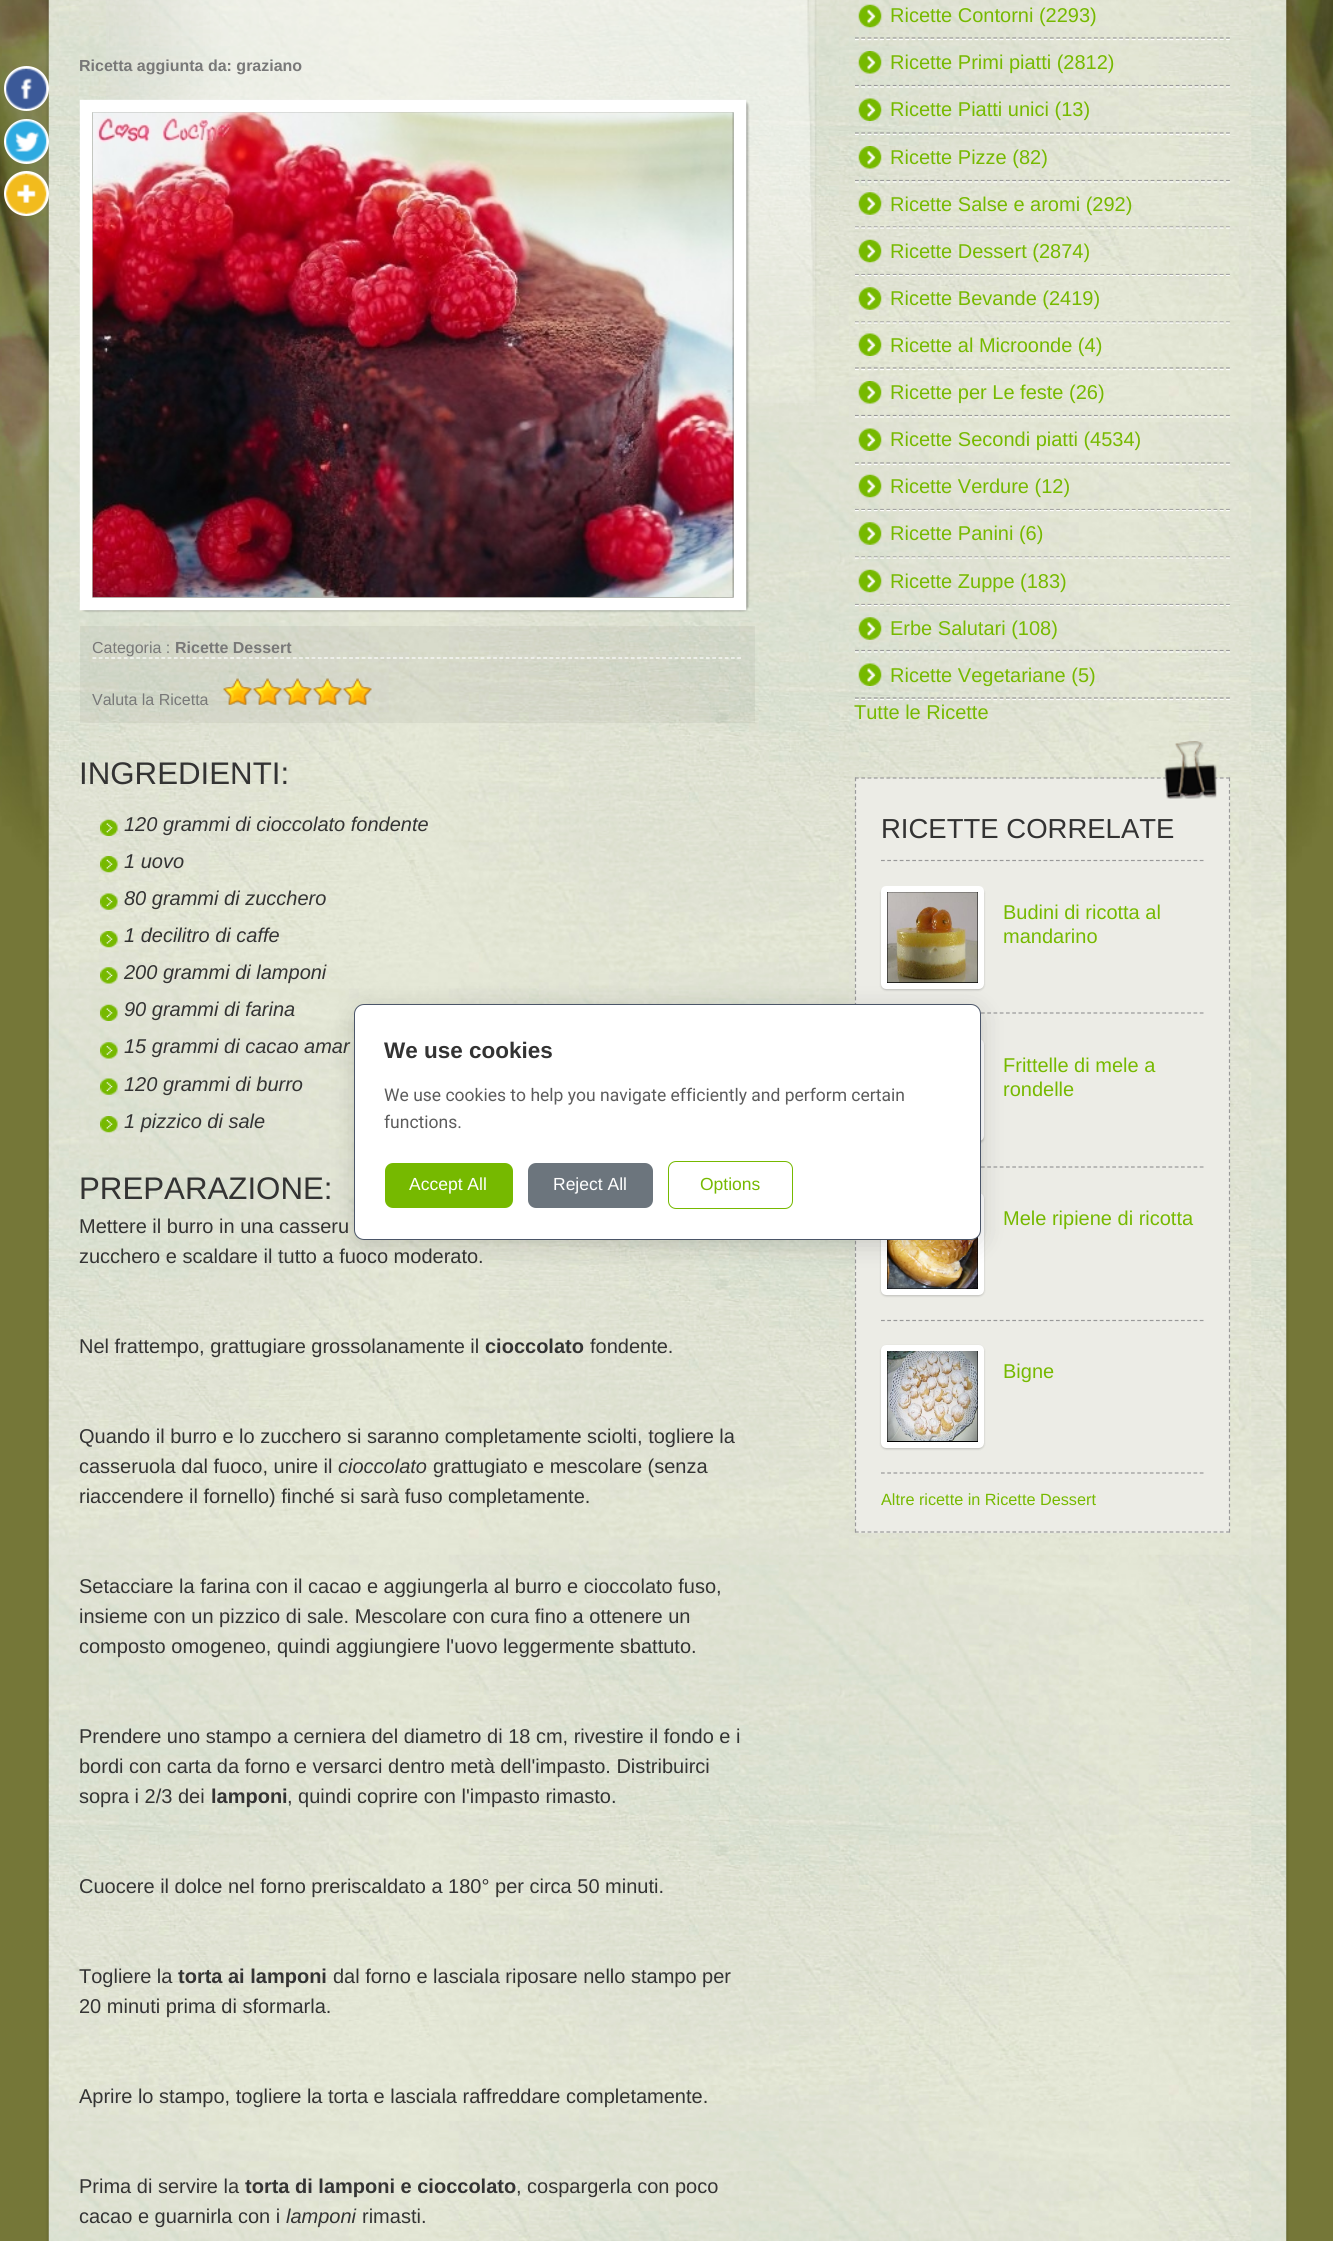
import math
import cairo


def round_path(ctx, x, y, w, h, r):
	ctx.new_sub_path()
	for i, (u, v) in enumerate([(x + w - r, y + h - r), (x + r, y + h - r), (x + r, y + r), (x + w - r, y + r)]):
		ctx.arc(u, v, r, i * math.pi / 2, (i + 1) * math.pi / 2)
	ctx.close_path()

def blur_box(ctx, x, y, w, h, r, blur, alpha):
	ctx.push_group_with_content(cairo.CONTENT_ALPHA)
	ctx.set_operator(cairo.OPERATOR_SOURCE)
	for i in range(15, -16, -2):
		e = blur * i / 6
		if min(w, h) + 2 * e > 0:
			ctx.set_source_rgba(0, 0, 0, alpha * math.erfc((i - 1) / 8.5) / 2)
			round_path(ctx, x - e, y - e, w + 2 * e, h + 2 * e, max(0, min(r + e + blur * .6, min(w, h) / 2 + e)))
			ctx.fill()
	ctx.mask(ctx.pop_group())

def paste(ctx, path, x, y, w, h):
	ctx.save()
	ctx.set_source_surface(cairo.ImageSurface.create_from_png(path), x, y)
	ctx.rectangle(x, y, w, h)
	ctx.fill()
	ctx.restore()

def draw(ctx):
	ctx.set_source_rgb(0.459, 0.467, 0.22)
	ctx.paint()
	paste(ctx, 'media/1.png', 0, 0, 1333, 1123)
	ctx.set_source_rgb(0, 0, 0)
	blur_box(ctx, 49, -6, 1237, 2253, 0, 2, 0.3)
	paste(ctx, 'media/5.png', 48, 0, 1239, 2241)
	ctx.set_source_rgb(1, 1, 1)
	ctx.arc(26.5, 88.5, 22.5, 0, 2 * math.pi)
	ctx.fill()
	paste(ctx, 'media/2.png', 6, 68, 41, 41)
	ctx.arc(26.5, 141.5, 22.5, 0, 2 * math.pi)
	ctx.fill()
	paste(ctx, 'media/3.png', 6, 120, 41, 42)
	ctx.arc(26.5, 193.5, 22.5, 0, 2 * math.pi)
	ctx.fill()
	paste(ctx, 'media/4.png', 6, 173, 41, 41)
	paste(ctx, 'media/6.png', 106, 0, 711, 403)
	ctx.select_font_face('Liberation Sans', cairo.FONT_SLANT_NORMAL, cairo.FONT_WEIGHT_BOLD)
	ctx.set_font_size(16)
	ctx.set_source_rgb(0.471, 0.471, 0.471)
	ctx.move_to(79, 71)
	ctx.show_text('Ricetta aggiunta da: graziano')
	ctx.set_source_rgb(0, 0, 0)
	blur_box(ctx, 81, 101, 667, 510, 5, 1, 0.3)
	ctx.new_path()
	ctx.move_to(86, 106)
	ctx.line_to(740, 106)
	ctx.line_to(740, 604)
	ctx.line_to(86, 604)
	ctx.close_path()
	ctx.set_source_rgb(1, 1, 1)
	ctx.set_line_width(12.5)
	ctx.stroke()
	paste(ctx, 'media/7.png', 92, 112, 642, 486)
	ctx.set_source_rgba(0, 0, 0, 0.05)
	ctx.rectangle(80, 626, 675, 97)
	ctx.fill()
	ctx.select_font_face('Liberation Sans')
	ctx.set_source_rgb(0.471, 0.471, 0.471)
	ctx.move_to(92, 653)
	ctx.show_text('Categoria :')
	ctx.select_font_face('Liberation Sans', cairo.FONT_SLANT_NORMAL, cairo.FONT_WEIGHT_BOLD)
	ctx.move_to(175, 653)
	ctx.show_text('Ricette Dessert')
	ctx.new_path()
	ctx.move_to(92.5, 658)
	ctx.line_to(741, 658)
	ctx.set_source_rgb(1, 1, 1)
	ctx.set_line_width(1.2)
	ctx.set_dash([3.75, 2.51])
	ctx.stroke()
	ctx.select_font_face('Liberation Sans')
	ctx.set_source_rgb(0.471, 0.471, 0.471)
	ctx.move_to(92, 705)
	ctx.show_text('Valuta la Ricetta')
	paste(ctx, 'media/8.png', 223, 678, 149, 27)
	ctx.set_font_size(31.25)
	ctx.set_source_rgb(0.2, 0.2, 0.2)
	ctx.move_to(79, 784)
	ctx.show_text('INGREDIENTI:')
	paste(ctx, 'media/9.png', 100, 819, 18, 17)
	ctx.select_font_face('Liberation Sans', cairo.FONT_SLANT_ITALIC)
	ctx.set_font_size(20)
	ctx.move_to(124, 831)
	ctx.show_text('120 grammi di cioccolato fondente')
	paste(ctx, 'media/10.png', 100, 856, 18, 17)
	ctx.move_to(124, 868)
	ctx.show_text('1 uovo')
	paste(ctx, 'media/11.png', 100, 893, 18, 17)
	ctx.move_to(124, 905)
	ctx.show_text('80 grammi di zucchero')
	paste(ctx, 'media/12.png', 100, 931, 18, 17)
	ctx.move_to(124, 942)
	ctx.show_text('1 decilitro di caffe')
	paste(ctx, 'media/13.png', 100, 967, 18, 17)
	ctx.move_to(124, 979)
	ctx.show_text('200 grammi di lamponi')
	paste(ctx, 'media/14.png', 100, 1004, 18, 17)
	ctx.move_to(124, 1016)
	ctx.show_text('90 grammi di farina')
	paste(ctx, 'media/15.png', 100, 1042, 18, 17)
	ctx.move_to(124, 1053)
	ctx.show_text('15 grammi di cacao amar')
	paste(ctx, 'media/16.png', 100, 1078, 18, 17)
	ctx.move_to(124, 1091)
	ctx.show_text('120 grammi di burro')
	paste(ctx, 'media/17.png', 100, 1116, 18, 17)
	ctx.move_to(124, 1128)
	ctx.show_text('1 pizzico di sale')
	ctx.select_font_face('Liberation Sans')
	ctx.set_font_size(31.25)
	ctx.move_to(79, 1199)
	ctx.show_text('PREPARAZIONE:')
	ctx.set_font_size(20)
	for x, y, s in [
		(79, 1233, 'Mettere il burro in una casseru'),
		(79, 1263, 'zucchero e scaldare il tutto a fuoco moderato.'),
		(79, 1353, 'Nel frattempo, grattugiare grossolanamente il'),
	]:
		ctx.move_to(x, y)
		ctx.show_text(s)
	ctx.select_font_face('Liberation Sans', cairo.FONT_SLANT_NORMAL, cairo.FONT_WEIGHT_BOLD)
	ctx.move_to(485, 1353)
	ctx.show_text('cioccolato')
	ctx.select_font_face('Liberation Sans')
	for x, y, s in [
		(590, 1353, 'fondente.'),
		(79, 1443, 'Quando il burro e lo zucchero si saranno completamente sciolti, togliere la'),
		(79, 1473, 'casseruola dal fuoco, unire il'),
	]:
		ctx.move_to(x, y)
		ctx.show_text(s)
	ctx.select_font_face('Liberation Sans', cairo.FONT_SLANT_ITALIC)
	ctx.move_to(338, 1473)
	ctx.show_text('cioccolato')
	ctx.select_font_face('Liberation Sans')
	for x, y, s in [
		(433, 1473, 'grattugiato e mescolare (senza'),
		(79, 1503, 'riaccendere il fornello) finché si sarà fuso completamente.'),
		(79, 1593, 'Setacciare la farina con il cacao e aggiungerla al burro e cioccolato fuso,'),
		(79, 1623, 'insieme con un pizzico di sale. Mescolare con cura fino a ottenere un'),
		(79, 1653, 'composto omogeneo, quindi aggiungiere l\'uovo leggermente sbattuto.'),
		(79, 1743, 'Prendere uno stampo a cerniera del diametro di 18 cm, rivestire il fondo e i'),
		(79, 1773, 'bordi con carta da forno e versarci dentro metà dell\'impasto. Distribuirci'),
		(79, 1803, 'sopra i 2/3 dei'),
	]:
		ctx.move_to(x, y)
		ctx.show_text(s)
	ctx.select_font_face('Liberation Sans', cairo.FONT_SLANT_NORMAL, cairo.FONT_WEIGHT_BOLD)
	ctx.move_to(211, 1803)
	ctx.show_text('lamponi')
	ctx.select_font_face('Liberation Sans')
	for x, y, s in [
		(287, 1803, ', quindi coprire con l\'impasto rimasto.'),
		(79, 1893, 'Cuocere il dolce nel forno preriscaldato a 180° per circa 50 minuti.'),
		(79, 1983, 'Togliere la'),
	]:
		ctx.move_to(x, y)
		ctx.show_text(s)
	ctx.select_font_face('Liberation Sans', cairo.FONT_SLANT_NORMAL, cairo.FONT_WEIGHT_BOLD)
	ctx.move_to(178, 1983)
	ctx.show_text('torta ai lamponi')
	ctx.select_font_face('Liberation Sans')
	for x, y, s in [
		(333, 1983, 'dal forno e lasciala riposare nello stampo per'),
		(79, 2013, '20 minuti prima di sformarla.'),
		(79, 2103, 'Aprire lo stampo, togliere la torta e lasciala raffreddare completamente.'),
		(79, 2193, 'Prima di servire la'),
	]:
		ctx.move_to(x, y)
		ctx.show_text(s)
	ctx.select_font_face('Liberation Sans', cairo.FONT_SLANT_NORMAL, cairo.FONT_WEIGHT_BOLD)
	ctx.move_to(245, 2193)
	ctx.show_text('torta di lamponi e cioccolato')
	ctx.select_font_face('Liberation Sans')
	ctx.move_to(516, 2193)
	ctx.show_text(', cospargerla con poco')
	ctx.move_to(79, 2223)
	ctx.show_text('cacao e guarnirla con i')
	ctx.select_font_face('Liberation Sans', cairo.FONT_SLANT_ITALIC)
	ctx.move_to(286, 2223)
	ctx.show_text('lamponi')
	ctx.select_font_face('Liberation Sans')
	ctx.move_to(362, 2223)
	ctx.show_text('rimasti.')
	ctx.new_path()
	ctx.move_to(855, 699.5)
	ctx.line_to(1230, 699.5)
	ctx.set_source_rgb(1, 1, 1)
	ctx.set_dash([3.75, 2.54])
	ctx.stroke()
	paste(ctx, 'media/18.png', 858, 4, 24, 24)
	ctx.new_path()
	ctx.move_to(855, 38)
	ctx.line_to(1230, 38)
	ctx.set_source_rgb(0.6, 0.6, 0.6)
	ctx.stroke()
	ctx.set_source_rgb(0.463, 0.725, 0)
	ctx.move_to(890, 22)
	ctx.show_text('Ricette Contorni (2293)')
	paste(ctx, 'media/19.png', 858, 51, 24, 23)
	ctx.new_path()
	ctx.move_to(855, 39.5)
	ctx.line_to(1230, 39.5)
	ctx.set_source_rgb(1, 1, 1)
	ctx.stroke()
	ctx.new_path()
	ctx.move_to(855, 85.5)
	ctx.line_to(1230, 85.5)
	ctx.set_source_rgb(0.6, 0.6, 0.6)
	ctx.stroke()
	ctx.set_source_rgb(0.463, 0.725, 0)
	ctx.move_to(890, 69)
	ctx.show_text('Ricette Primi piatti (2812)')
	paste(ctx, 'media/20.png', 858, 98, 24, 23)
	ctx.new_path()
	ctx.move_to(855, 87)
	ctx.line_to(1230, 87)
	ctx.set_source_rgb(1, 1, 1)
	ctx.stroke()
	ctx.new_path()
	ctx.move_to(855, 133)
	ctx.line_to(1230, 133)
	ctx.set_source_rgb(0.6, 0.6, 0.6)
	ctx.stroke()
	ctx.set_source_rgb(0.463, 0.725, 0)
	ctx.move_to(890, 116)
	ctx.show_text('Ricette Piatti unici (13)')
	paste(ctx, 'media/21.png', 858, 146, 24, 23)
	ctx.new_path()
	ctx.move_to(855, 134.5)
	ctx.line_to(1230, 134.5)
	ctx.set_source_rgb(1, 1, 1)
	ctx.stroke()
	ctx.new_path()
	ctx.move_to(855, 180.5)
	ctx.line_to(1230, 180.5)
	ctx.set_source_rgb(0.6, 0.6, 0.6)
	ctx.stroke()
	ctx.set_source_rgb(0.463, 0.725, 0)
	ctx.move_to(890, 164)
	ctx.show_text('Ricette Pizze (82)')
	paste(ctx, 'media/22.png', 858, 192, 24, 23)
	ctx.new_path()
	ctx.move_to(855, 182)
	ctx.line_to(1230, 182)
	ctx.set_source_rgb(1, 1, 1)
	ctx.stroke()
	ctx.new_path()
	ctx.move_to(855, 227)
	ctx.line_to(1230, 227)
	ctx.set_source_rgb(0.6, 0.6, 0.6)
	ctx.stroke()
	ctx.set_source_rgb(0.463, 0.725, 0)
	ctx.move_to(890, 211)
	ctx.show_text('Ricette Salse e aromi (292)')
	paste(ctx, 'media/23.png', 858, 239, 24, 24)
	ctx.new_path()
	ctx.move_to(855, 228)
	ctx.line_to(1230, 228)
	ctx.set_source_rgb(1, 1, 1)
	ctx.stroke()
	ctx.new_path()
	ctx.move_to(855, 274.5)
	ctx.line_to(1230, 274.5)
	ctx.set_source_rgb(0.6, 0.6, 0.6)
	ctx.stroke()
	ctx.set_source_rgb(0.463, 0.725, 0)
	ctx.move_to(890, 258)
	ctx.show_text('Ricette Dessert (2874)')
	paste(ctx, 'media/24.png', 858, 287, 24, 23)
	ctx.new_path()
	ctx.move_to(855, 275.5)
	ctx.line_to(1230, 275.5)
	ctx.set_source_rgb(1, 1, 1)
	ctx.stroke()
	ctx.new_path()
	ctx.move_to(855, 322)
	ctx.line_to(1230, 322)
	ctx.set_source_rgb(0.6, 0.6, 0.6)
	ctx.stroke()
	ctx.set_source_rgb(0.463, 0.725, 0)
	ctx.move_to(890, 305)
	ctx.show_text('Ricette Bevande (2419)')
	paste(ctx, 'media/25.png', 858, 333, 24, 23)
	ctx.new_path()
	ctx.move_to(855, 323)
	ctx.line_to(1230, 323)
	ctx.set_source_rgb(1, 1, 1)
	ctx.stroke()
	ctx.new_path()
	ctx.move_to(855, 368)
	ctx.line_to(1230, 368)
	ctx.set_source_rgb(0.6, 0.6, 0.6)
	ctx.stroke()
	ctx.set_source_rgb(0.463, 0.725, 0)
	ctx.move_to(890, 352)
	ctx.show_text('Ricette al Microonde (4)')
	paste(ctx, 'media/26.png', 858, 381, 24, 23)
	ctx.new_path()
	ctx.move_to(855, 369.5)
	ctx.line_to(1230, 369.5)
	ctx.set_source_rgb(1, 1, 1)
	ctx.stroke()
	ctx.new_path()
	ctx.move_to(855, 415.5)
	ctx.line_to(1230, 415.5)
	ctx.set_source_rgb(0.6, 0.6, 0.6)
	ctx.stroke()
	ctx.set_source_rgb(0.463, 0.725, 0)
	ctx.move_to(890, 399)
	ctx.show_text('Ricette per Le feste (26)')
	paste(ctx, 'media/27.png', 858, 428, 24, 23)
	ctx.new_path()
	ctx.move_to(855, 417)
	ctx.line_to(1230, 417)
	ctx.set_source_rgb(1, 1, 1)
	ctx.stroke()
	ctx.new_path()
	ctx.move_to(855, 463)
	ctx.line_to(1230, 463)
	ctx.set_source_rgb(0.6, 0.6, 0.6)
	ctx.stroke()
	ctx.set_source_rgb(0.463, 0.725, 0)
	ctx.move_to(890, 446)
	ctx.show_text('Ricette Secondi piatti (4534)')
	paste(ctx, 'media/28.png', 858, 474, 24, 24)
	ctx.new_path()
	ctx.move_to(855, 464.5)
	ctx.line_to(1230, 464.5)
	ctx.set_source_rgb(1, 1, 1)
	ctx.stroke()
	ctx.new_path()
	ctx.move_to(855, 509.5)
	ctx.line_to(1230, 509.5)
	ctx.set_source_rgb(0.6, 0.6, 0.6)
	ctx.stroke()
	ctx.set_source_rgb(0.463, 0.725, 0)
	ctx.move_to(890, 493)
	ctx.show_text('Ricette Verdure (12)')
	paste(ctx, 'media/29.png', 858, 522, 24, 23)
	ctx.new_path()
	ctx.move_to(855, 510.5)
	ctx.line_to(1230, 510.5)
	ctx.set_source_rgb(1, 1, 1)
	ctx.stroke()
	ctx.new_path()
	ctx.move_to(855, 557)
	ctx.line_to(1230, 557)
	ctx.set_source_rgb(0.6, 0.6, 0.6)
	ctx.stroke()
	ctx.set_source_rgb(0.463, 0.725, 0)
	ctx.move_to(890, 540)
	ctx.show_text('Ricette Panini (6)')
	paste(ctx, 'media/30.png', 858, 569, 24, 24)
	ctx.new_path()
	ctx.move_to(855, 558)
	ctx.line_to(1230, 558)
	ctx.set_source_rgb(1, 1, 1)
	ctx.stroke()
	ctx.new_path()
	ctx.move_to(855, 604.5)
	ctx.line_to(1230, 604.5)
	ctx.set_source_rgb(0.6, 0.6, 0.6)
	ctx.stroke()
	ctx.set_source_rgb(0.463, 0.725, 0)
	ctx.move_to(890, 588)
	ctx.show_text('Ricette Zuppe (183)')
	paste(ctx, 'media/31.png', 858, 617, 24, 23)
	ctx.new_path()
	ctx.move_to(855, 605.5)
	ctx.line_to(1230, 605.5)
	ctx.set_source_rgb(1, 1, 1)
	ctx.stroke()
	ctx.new_path()
	ctx.move_to(855, 650.5)
	ctx.line_to(1230, 650.5)
	ctx.set_source_rgb(0.6, 0.6, 0.6)
	ctx.stroke()
	ctx.set_source_rgb(0.463, 0.725, 0)
	ctx.move_to(890, 635)
	ctx.show_text('Erbe Salutari (108)')
	paste(ctx, 'media/32.png', 858, 663, 24, 23)
	ctx.new_path()
	ctx.move_to(855, 652)
	ctx.line_to(1230, 652)
	ctx.set_source_rgb(1, 1, 1)
	ctx.stroke()
	ctx.new_path()
	ctx.move_to(855, 698)
	ctx.line_to(1230, 698)
	ctx.set_source_rgb(0.6, 0.6, 0.6)
	ctx.stroke()
	ctx.set_source_rgb(0.463, 0.725, 0)
	ctx.move_to(890, 682)
	ctx.show_text('Ricette Vegetariane (5)')
	ctx.move_to(854, 719)
	ctx.show_text('Tutte le Ricette')
	ctx.set_source_rgb(0.922, 0.925, 0.902)
	ctx.rectangle(855, 778, 375, 755)
	ctx.fill()
	ctx.new_path()
	ctx.move_to(855, 778)
	ctx.line_to(1230, 778)
	ctx.set_source_rgb(0.6, 0.6, 0.6)
	ctx.stroke()
	ctx.new_path()
	ctx.move_to(1229.5, 777.5)
	ctx.line_to(1229.5, 1532.5)
	ctx.set_dash([3.75, 2.51])
	ctx.stroke()
	ctx.new_path()
	ctx.move_to(855, 1532)
	ctx.line_to(1230, 1532)
	ctx.set_dash([3.75, 2.54])
	ctx.stroke()
	ctx.new_path()
	ctx.move_to(855.5, 777.5)
	ctx.line_to(855.5, 1532.5)
	ctx.set_dash([3.75, 2.51])
	ctx.stroke()
	ctx.set_font_size(27.5)
	ctx.set_source_rgb(0.2, 0.2, 0.2)
	ctx.move_to(881, 838)
	ctx.show_text('RICETTE CORRELATE')
	paste(ctx, 'media/33.png', 1164, 741, 53, 58)
	ctx.new_path()
	ctx.move_to(881, 860.5)
	ctx.line_to(1204, 860.5)
	ctx.set_source_rgb(0.6, 0.6, 0.6)
	ctx.set_dash([3.75, 2.5])
	ctx.stroke()
	ctx.set_source_rgb(0, 0, 0)
	blur_box(ctx, 881, 888, 103, 102, 5, 1, 0.2)
	ctx.set_source_rgb(0, 0, 0)
	round_path(ctx, 884, 889, 97, 97, 2)
	ctx.fill_preserve()
	ctx.set_source_rgb(1, 1, 1)
	ctx.set_line_width(6)
	ctx.set_dash([])
	ctx.stroke()
	paste(ctx, 'media/34.png', 887, 892, 91, 91)
	ctx.set_font_size(20)
	ctx.set_source_rgb(0.463, 0.725, 0)
	ctx.move_to(1003, 919)
	ctx.show_text('Budini di ricotta al')
	ctx.move_to(1003, 943)
	ctx.show_text('mandarino')
	ctx.new_path()
	ctx.move_to(881, 1013)
	ctx.line_to(1204, 1013)
	ctx.set_source_rgb(0.6, 0.6, 0.6)
	ctx.set_line_width(1.2)
	ctx.set_dash([3.75, 2.5])
	ctx.stroke()
	ctx.set_source_rgb(0, 0, 0)
	blur_box(ctx, 881, 1040, 103, 103, 5, 1, 0.2)
	round_path(ctx, 884, 1042, 97, 96, 2)
	ctx.set_source_rgb(1, 1, 1)
	ctx.set_line_width(6)
	ctx.set_dash([])
	ctx.stroke()
	ctx.set_source_rgb(0.463, 0.725, 0)
	ctx.move_to(1003, 1072)
	ctx.show_text('Frittelle di mele a')
	ctx.move_to(1003, 1096)
	ctx.show_text('rondelle')
	ctx.new_path()
	ctx.move_to(881, 1167)
	ctx.line_to(1204, 1167)
	ctx.set_source_rgb(0.6, 0.6, 0.6)
	ctx.set_line_width(1.2)
	ctx.set_dash([3.75, 2.5])
	ctx.stroke()
	ctx.set_source_rgb(0, 0, 0)
	blur_box(ctx, 881, 1194, 103, 102, 5, 1, 0.2)
	ctx.set_source_rgb(0, 0, 0)
	round_path(ctx, 884, 1196, 97, 96, 2)
	ctx.fill_preserve()
	ctx.set_source_rgb(1, 1, 1)
	ctx.set_line_width(6)
	ctx.set_dash([])
	ctx.stroke()
	paste(ctx, 'media/35.png', 887, 1237, 91, 52)
	ctx.set_source_rgb(0.463, 0.725, 0)
	ctx.move_to(1003, 1225)
	ctx.show_text('Mele ripiene di ricotta')
	ctx.new_path()
	ctx.move_to(881, 1320.5)
	ctx.line_to(1204, 1320.5)
	ctx.set_source_rgb(0.6, 0.6, 0.6)
	ctx.set_line_width(1.2)
	ctx.set_dash([3.75, 2.5])
	ctx.stroke()
	ctx.set_source_rgb(0, 0, 0)
	blur_box(ctx, 881, 1346, 103, 103, 5, 1, 0.2)
	ctx.set_source_rgb(0, 0, 0)
	round_path(ctx, 884, 1348, 97, 97, 2)
	ctx.fill_preserve()
	ctx.set_source_rgb(1, 1, 1)
	ctx.set_line_width(6)
	ctx.set_dash([])
	ctx.stroke()
	paste(ctx, 'media/36.png', 887, 1351, 91, 90)
	ctx.set_source_rgb(0.463, 0.725, 0)
	ctx.move_to(1003, 1378)
	ctx.show_text('Bigne')
	ctx.new_path()
	ctx.move_to(881, 1473)
	ctx.line_to(1204, 1473)
	ctx.set_source_rgb(0.6, 0.6, 0.6)
	ctx.set_line_width(1.2)
	ctx.set_dash([3.75, 2.5])
	ctx.stroke()
	ctx.set_font_size(16.25)
	ctx.set_source_rgb(0.463, 0.725, 0)
	ctx.move_to(881, 1505)
	ctx.show_text('Altre ricette in Ricette Dessert')
	ctx.set_source_rgb(0, 0, 0)
	blur_box(ctx, 354, 1009, 627, 236, 10, 12.5, 0.15)
	ctx.set_source_rgb(1, 1, 1)
	round_path(ctx, 354.5, 1004.5, 626, 235, 9.5)
	ctx.fill_preserve()
	ctx.set_source_rgb(0.29, 0.333, 0.408)
	ctx.set_line_width(1)
	ctx.set_dash([])
	ctx.stroke()
	ctx.select_font_face('Liberation Sans', cairo.FONT_SLANT_NORMAL, cairo.FONT_WEIGHT_BOLD)
	ctx.set_font_size(22.5)
	ctx.set_source_rgb(0.2, 0.2, 0.2)
	ctx.move_to(384, 1058)
	ctx.show_text('We use cookies')
	ctx.select_font_face('Roboto')
	ctx.set_font_size(17.5)
	ctx.set_source_rgb(0.361, 0.361, 0.361)
	ctx.move_to(384, 1101)
	ctx.show_text('We use cookies to help you navigate efficiently and perform certain')
	ctx.move_to(384, 1128)
	ctx.show_text('functions.')
	ctx.set_source_rgb(0.463, 0.725, 0)
	round_path(ctx, 385, 1163, 128, 45, 8)
	ctx.fill()
	ctx.select_font_face('Liberation Sans')
	ctx.set_source_rgb(1, 1, 1)
	ctx.move_to(409, 1190)
	ctx.show_text('Accept All')
	ctx.set_source_rgb(0.424, 0.459, 0.49)
	round_path(ctx, 528, 1163, 125, 45, 8)
	ctx.fill()
	ctx.set_source_rgb(1, 1, 1)
	ctx.move_to(553, 1190)
	ctx.show_text('Reject All')
	round_path(ctx, 668.5, 1161.5, 124, 47, 7.5)
	ctx.set_source_rgb(0.463, 0.725, 0)
	ctx.stroke()
	ctx.move_to(700, 1190)
	ctx.show_text('Options')


surface = cairo.ImageSurface(cairo.FORMAT_RGB24, 1333, 2241)
ctx = cairo.Context(surface)
options = cairo.FontOptions()
options.set_hint_metrics(cairo.HINT_METRICS_OFF)
options.set_hint_style(cairo.HINT_STYLE_NONE)
ctx.set_font_options(options)
ctx.set_miter_limit(4)
draw(ctx)
surface.write_to_png('image.png')
